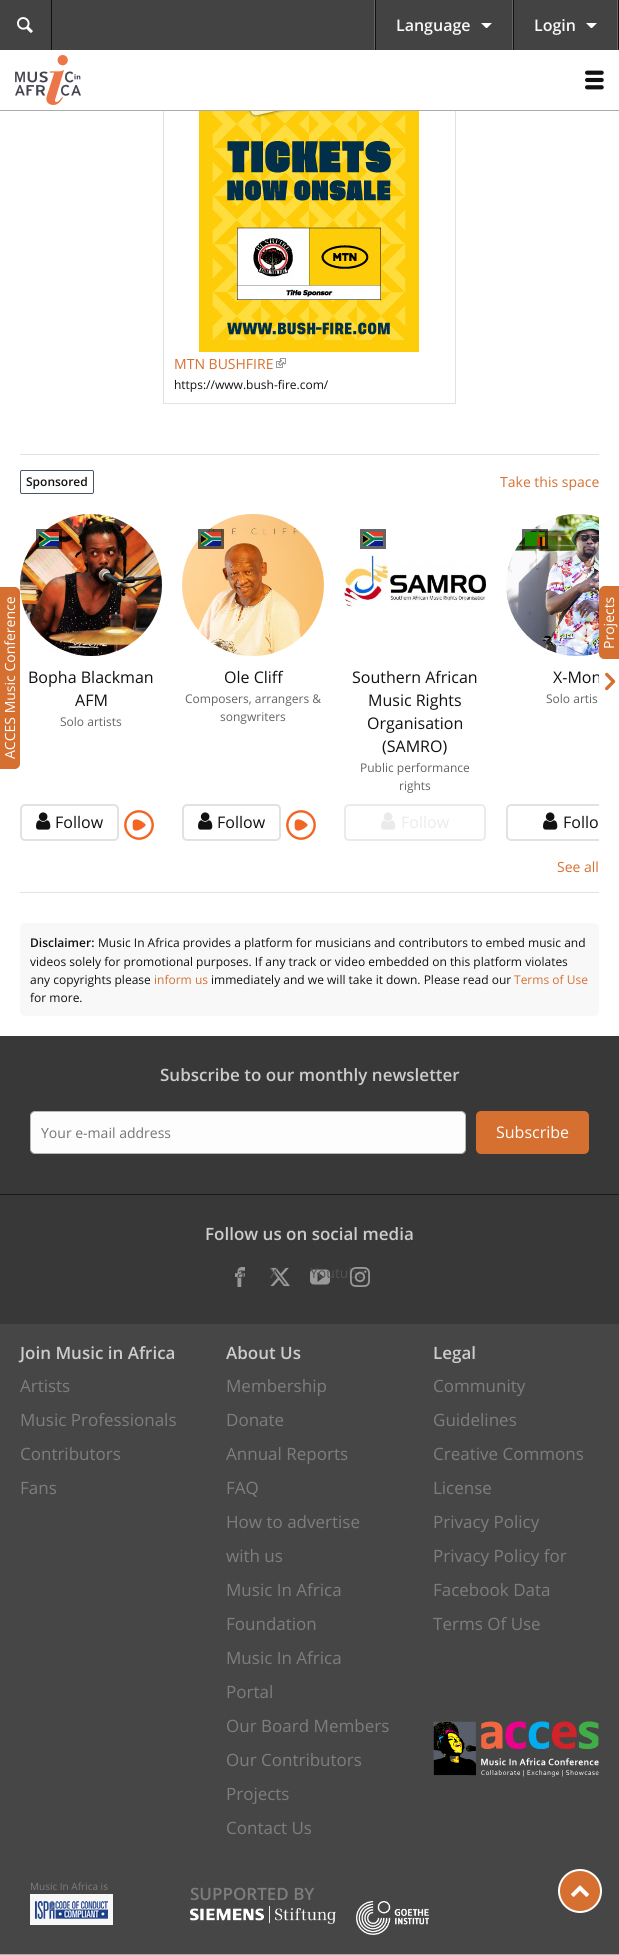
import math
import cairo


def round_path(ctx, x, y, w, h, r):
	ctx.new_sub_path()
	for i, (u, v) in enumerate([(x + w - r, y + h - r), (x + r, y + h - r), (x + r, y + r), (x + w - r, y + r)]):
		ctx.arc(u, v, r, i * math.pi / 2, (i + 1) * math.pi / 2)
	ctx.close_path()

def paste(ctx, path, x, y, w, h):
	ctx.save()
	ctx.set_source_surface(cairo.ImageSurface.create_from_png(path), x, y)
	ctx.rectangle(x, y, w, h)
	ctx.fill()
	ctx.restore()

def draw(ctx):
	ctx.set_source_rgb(1, 1, 1)
	ctx.paint()
	ctx.rectangle(163.5, -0.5, 292, 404)
	ctx.set_source_rgb(0.886, 0.886, 0.886)
	ctx.set_line_width(1)
	ctx.stroke()
	ctx.set_source_rgb(0.263, 0.263, 0.263)
	ctx.rectangle(0, 0, 617, 50)
	ctx.fill()
	ctx.set_source_rgb(0.067, 0.067, 0.067)
	ctx.rectangle(51, 0, 1, 50)
	ctx.fill()
	paste(ctx, 'media/1.png', 17, 17, 16, 16)
	ctx.rectangle(618, 0, 1, 50)
	ctx.fill()
	ctx.set_source_rgb(0.388, 0.388, 0.388)
	ctx.rectangle(512, 0, 1, 50)
	ctx.rectangle(374, 0, 1, 50)
	ctx.fill()
	ctx.set_source_rgb(0.067, 0.067, 0.067)
	ctx.rectangle(375, 0, 1, 50)
	ctx.fill()
	ctx.select_font_face('Open Sans SemiBold')
	ctx.set_font_size(16)
	ctx.set_source_rgb(0.969, 0.969, 0.969)
	ctx.move_to(396, 31)
	ctx.show_text('Language')
	ctx.set_source_rgb(1, 1, 1)
	ctx.new_path()
	ctx.move_to(481, 23)
	ctx.line_to(492, 23)
	ctx.line_to(487, 28)
	ctx.line_to(486, 28)
	ctx.close_path()
	ctx.fill()
	ctx.set_source_rgb(0.388, 0.388, 0.388)
	ctx.rectangle(617, 0, 1, 50)
	ctx.fill()
	ctx.set_source_rgb(0.067, 0.067, 0.067)
	ctx.rectangle(513, 0, 1, 50)
	ctx.fill()
	ctx.set_source_rgb(0.969, 0.969, 0.969)
	ctx.move_to(534, 31)
	ctx.show_text('Login')
	ctx.set_source_rgb(1, 1, 1)
	ctx.new_path()
	ctx.move_to(586, 23)
	ctx.line_to(597, 23)
	ctx.line_to(592, 28)
	ctx.line_to(591, 28)
	ctx.close_path()
	ctx.fill()
	ctx.rectangle(163, 50, 293, 60)
	ctx.fill()
	ctx.set_source_rgb(0.675, 0.675, 0.675)
	ctx.rectangle(0, 110, 619, 1)
	ctx.fill()
	paste(ctx, 'media/2.png', 15, 55, 66, 50)
	paste(ctx, 'media/3.png', 585, 70, 19, 20)
	ctx.set_source_rgb(0.835, 0.439, 0.192)
	ctx.new_path()
	ctx.move_to(0, 769)
	ctx.line_to(0, 587)
	ctx.line_to(15, 587)
	ctx.curve_to(17, 587, 20, 589, 20, 592)
	ctx.line_to(20, 764)
	ctx.curve_to(20, 767, 17, 769, 15, 769)
	ctx.close_path()
	ctx.fill()
	ctx.select_font_face('Open Sans')
	ctx.set_font_size(14)
	ctx.set_source_rgb(1, 1, 1)
	ctx.save()
	ctx.translate(15, 759)
	ctx.rotate(-90 * math.pi / 180)
	ctx.move_to(0, 0)
	ctx.show_text('ACCES Music Conference')
	ctx.restore()
	paste(ctx, 'media/4.png', 199, 111, 220, 241)
	ctx.set_source_rgb(0.835, 0.439, 0.192)
	ctx.move_to(174, 369)
	ctx.show_text('MTN BUSHFIRE')
	paste(ctx, 'media/5.png', 276, 358, 10, 10)
	ctx.set_font_size(12)
	ctx.set_source_rgb(0.067, 0.067, 0.067)
	ctx.move_to(174, 389)
	ctx.show_text('https://www.bush-fire.com/')
	ctx.set_source_rgb(0.886, 0.886, 0.886)
	ctx.rectangle(20, 454, 579, 1)
	ctx.fill()
	ctx.rectangle(20, 892, 579, 1)
	ctx.fill()
	round_path(ctx, 20.5, 470.5, 73, 23, 1.5)
	ctx.set_source_rgb(0.278, 0.337, 0.412)
	ctx.stroke()
	ctx.select_font_face('Open Sans SemiBold')
	ctx.set_source_rgb(0.067, 0.067, 0.067)
	ctx.move_to(26, 486)
	ctx.show_text('Sponsored')
	ctx.select_font_face('Open Sans')
	ctx.set_font_size(14)
	ctx.set_source_rgb(0.835, 0.439, 0.192)
	ctx.move_to(500, 487)
	ctx.show_text('Take this space')
	paste(ctx, 'media/6.png', 20, 514, 142, 142)
	ctx.set_source_rgba(0, 0, 0, 0.6)
	ctx.rectangle(36, 529, 26, 20)
	ctx.fill()
	paste(ctx, 'media/7.png', 39, 532, 20, 14)
	ctx.set_font_size(16)
	ctx.set_source_rgb(0.067, 0.067, 0.067)
	ctx.move_to(28, 683)
	ctx.show_text('Bopha Blackman')
	ctx.move_to(75, 706)
	ctx.show_text('AFM')
	ctx.set_font_size(12)
	ctx.set_source_rgb(0.388, 0.388, 0.388)
	ctx.move_to(60, 726)
	ctx.show_text('Solo artists')
	round_path(ctx, 21, 805, 97, 35, 4)
	ctx.set_source_rgb(0.886, 0.886, 0.886)
	ctx.set_line_width(2)
	ctx.stroke()
	paste(ctx, 'media/8.png', 36, 812, 15, 18)
	ctx.set_font_size(16)
	ctx.set_source_rgb(0.067, 0.067, 0.067)
	ctx.move_to(55, 828)
	ctx.show_text('Follow')
	paste(ctx, 'media/9.png', 124, 810, 30, 30)
	paste(ctx, 'media/10.png', 182, 514, 142, 142)
	ctx.set_source_rgba(0, 0, 0, 0.6)
	ctx.rectangle(198, 529, 26, 20)
	ctx.fill()
	paste(ctx, 'media/7.png', 201, 532, 20, 14)
	ctx.set_source_rgb(0.067, 0.067, 0.067)
	ctx.move_to(224, 683)
	ctx.show_text('Ole Cliff')
	ctx.set_font_size(12)
	ctx.set_source_rgb(0.388, 0.388, 0.388)
	ctx.move_to(185, 703)
	ctx.show_text('Composers, arrangers &')
	ctx.move_to(220, 721)
	ctx.show_text('songwriters')
	round_path(ctx, 183, 805, 97, 35, 4)
	ctx.set_source_rgb(0.886, 0.886, 0.886)
	ctx.stroke()
	paste(ctx, 'media/8.png', 198, 812, 15, 18)
	ctx.set_font_size(16)
	ctx.set_source_rgb(0.067, 0.067, 0.067)
	ctx.move_to(217, 828)
	ctx.show_text('Follow')
	paste(ctx, 'media/9.png', 286, 810, 30, 30)
	ctx.set_source_rgb(0.4, 0.4, 0.4)
	ctx.rectangle(360, 529, 26, 20)
	ctx.fill()
	paste(ctx, 'media/7.png', 363, 532, 20, 14)
	paste(ctx, 'media/11.png', 344, 555, 142, 52)
	ctx.set_source_rgb(0.067, 0.067, 0.067)
	for x, y, s in [
		(352, 683, 'Southern African'),
		(368, 706, 'Music Rights'),
		(367, 729, 'Organisation'),
		(382, 752, '(SAMRO)'),
	]:
		ctx.move_to(x, y)
		ctx.show_text(s)
	ctx.set_font_size(12)
	ctx.set_source_rgb(0.388, 0.388, 0.388)
	ctx.move_to(360, 772)
	ctx.show_text('Public performance')
	ctx.move_to(399, 790)
	ctx.show_text('rights')
	round_path(ctx, 345, 805, 140, 35, 4)
	ctx.set_source_rgb(0.918, 0.918, 0.918)
	ctx.stroke()
	paste(ctx, 'media/12.png', 381, 812, 15, 18)
	ctx.set_font_size(16)
	ctx.move_to(401, 828)
	ctx.show_text('Follow')
	paste(ctx, 'media/13.png', 506, 514, 93, 142)
	ctx.set_source_rgba(0, 0, 0, 0.6)
	ctx.rectangle(522, 529, 26, 20)
	ctx.fill()
	paste(ctx, 'media/14.png', 525, 532, 20, 14)
	ctx.save()
	ctx.rectangle(20, 514, 579, 327)
	ctx.clip()
	ctx.set_source_rgb(0.067, 0.067, 0.067)
	ctx.move_to(553, 683)
	ctx.show_text('X-Mon')
	ctx.restore()
	ctx.set_font_size(12)
	ctx.set_source_rgb(0.388, 0.388, 0.388)
	ctx.move_to(546, 703)
	ctx.show_text('Solo artis')
	ctx.save()
	ctx.rectangle(20, 514, 579, 327)
	ctx.clip()
	round_path(ctx, 507, 805, 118, 35, 4)
	ctx.set_source_rgb(0.886, 0.886, 0.886)
	ctx.stroke()
	ctx.restore()
	paste(ctx, 'media/8.png', 543, 812, 15, 18)
	ctx.set_font_size(16)
	ctx.set_source_rgb(0.067, 0.067, 0.067)
	ctx.move_to(563, 828)
	ctx.show_text('Follo')
	paste(ctx, 'media/15.png', 605, 672, 11, 19)
	ctx.set_font_size(14)
	ctx.set_source_rgb(0.835, 0.439, 0.192)
	ctx.move_to(557, 872)
	ctx.show_text('See all')
	ctx.new_path()
	ctx.move_to(599, 654)
	ctx.line_to(599, 591)
	ctx.curve_to(599, 589, 602, 586, 604, 586)
	ctx.line_to(619, 586)
	ctx.line_to(619, 659)
	ctx.line_to(604, 659)
	ctx.curve_to(602, 659, 599, 657, 599, 654)
	ctx.close_path()
	ctx.fill()
	ctx.set_source_rgb(1, 1, 1)
	ctx.save()
	ctx.translate(614, 649)
	ctx.rotate(-90 * math.pi / 180)
	ctx.move_to(0, 0)
	ctx.show_text('Projects')
	ctx.restore()
	ctx.set_source_rgb(0.969, 0.969, 0.969)
	round_path(ctx, 20, 923, 579, 93, 5)
	ctx.fill()
	ctx.select_font_face('Open Sans SemiBold')
	ctx.set_font_size(12)
	ctx.set_source_rgb(0.067, 0.067, 0.067)
	ctx.move_to(30, 947)
	ctx.show_text('Disclaimer:')
	ctx.select_font_face('Open Sans')
	for x, y, s in [
		(98, 947, 'Music In Africa provides a platform for musicians and contributors to embed music and'),
		(30, 966, 'videos solely for promotional purposes. If any track or video embedded on this platform violates'),
		(30, 984, 'any copyrights please'),
	]:
		ctx.move_to(x, y)
		ctx.show_text(s)
	ctx.set_source_rgb(0.835, 0.439, 0.192)
	ctx.move_to(154, 984)
	ctx.show_text('inform us')
	ctx.set_source_rgb(0.067, 0.067, 0.067)
	ctx.move_to(211, 984)
	ctx.show_text('immediately and we will take it down. Please read our')
	ctx.set_source_rgb(0.835, 0.439, 0.192)
	ctx.move_to(514, 984)
	ctx.show_text('Terms of Use')
	ctx.set_source_rgb(0.067, 0.067, 0.067)
	ctx.move_to(30, 1002)
	ctx.show_text('for more.')
	ctx.set_source_rgb(0.275, 0.275, 0.275)
	ctx.rectangle(0, 1324, 619, 630)
	ctx.fill()
	ctx.set_source_rgb(0.22, 0.22, 0.22)
	ctx.rectangle(0, 1036, 619, 288)
	ctx.fill()
	ctx.set_source_rgb(0.102, 0.102, 0.102)
	ctx.rectangle(0, 1194, 619, 1)
	ctx.fill()
	ctx.select_font_face('Open Sans SemiBold')
	ctx.set_font_size(17)
	ctx.set_source_rgb(0.8, 0.8, 0.8)
	ctx.move_to(160, 1081)
	ctx.show_text('Subscribe to our monthly newsletter')
	ctx.set_source_rgb(0.992, 0.992, 0.992)
	round_path(ctx, 30.5, 1111.5, 435, 42, 4.5)
	ctx.fill_preserve()
	ctx.set_source_rgb(0.718, 0.718, 0.718)
	ctx.set_line_width(1)
	ctx.stroke()
	ctx.select_font_face('Open Sans')
	ctx.set_font_size(14)
	ctx.set_source_rgb(0.459, 0.459, 0.459)
	ctx.move_to(41, 1138)
	ctx.show_text('Your e-mail address')
	ctx.set_source_rgb(0.835, 0.439, 0.192)
	round_path(ctx, 476, 1111, 113, 43, 5)
	ctx.fill()
	ctx.set_font_size(16)
	ctx.set_source_rgb(1, 1, 1)
	ctx.move_to(496, 1138)
	ctx.show_text('Subscribe')
	ctx.select_font_face('Open Sans SemiBold')
	ctx.set_font_size(17)
	ctx.set_source_rgb(0.8, 0.8, 0.8)
	ctx.move_to(205, 1240)
	ctx.show_text('Follow us on social media')
	paste(ctx, 'media/16.png', 310, 1269, 20, 16)
	ctx.select_font_face('Open Sans')
	ctx.set_font_size(14)
	ctx.set_source_rgb(0.322, 0.322, 0.322)
	ctx.move_to(310, 1278)
	ctx.show_text('Youtube')
	paste(ctx, 'media/17.png', 235, 1267, 10, 20)
	ctx.set_source_rgb(0.259, 0.259, 0.259)
	ctx.move_to(237, 1278)
	ctx.show_text('a')
	paste(ctx, 'media/18.png', 270, 1267, 20, 20)
	ctx.set_source_rgb(0.357, 0.357, 0.357)
	ctx.move_to(270, 1278)
	ctx.show_text('X')
	paste(ctx, 'media/19.png', 350, 1267, 20, 20)
	ctx.select_font_face('Open Sans SemiBold')
	ctx.set_font_size(17)
	ctx.set_source_rgb(0.8, 0.8, 0.8)
	ctx.move_to(20, 1359)
	ctx.show_text('Join Music in Africa')
	ctx.select_font_face('Open Sans')
	ctx.set_source_rgb(0.49, 0.49, 0.49)
	for x, y, s in [
		(20, 1392, 'Artists'),
		(20, 1426, 'Music Professionals'),
		(20, 1460, 'Contributors'),
		(20, 1494, 'Fans'),
	]:
		ctx.move_to(x, y)
		ctx.show_text(s)
	ctx.select_font_face('Open Sans SemiBold')
	ctx.set_source_rgb(0.8, 0.8, 0.8)
	ctx.move_to(226, 1359)
	ctx.show_text('About Us')
	ctx.select_font_face('Open Sans')
	ctx.set_source_rgb(0.49, 0.49, 0.49)
	for x, y, s in [
		(226, 1392, 'Membership'),
		(226, 1426, 'Donate'),
		(226, 1460, 'Annual Reports'),
		(226, 1494, 'FAQ'),
		(226, 1528, 'How to advertise'),
		(226, 1562, 'with us'),
		(226, 1596, 'Music In Africa'),
		(226, 1630, 'Foundation'),
		(226, 1664, 'Music In Africa'),
		(226, 1698, 'Portal'),
		(226, 1732, 'Our Board Members'),
		(226, 1766, 'Our Contributors'),
		(226, 1800, 'Projects'),
		(226, 1834, 'Contact Us'),
	]:
		ctx.move_to(x, y)
		ctx.show_text(s)
	ctx.select_font_face('Open Sans SemiBold')
	ctx.set_source_rgb(0.8, 0.8, 0.8)
	ctx.move_to(433, 1359)
	ctx.show_text('Legal')
	ctx.select_font_face('Open Sans')
	ctx.set_source_rgb(0.49, 0.49, 0.49)
	for x, y, s in [
		(433, 1392, 'Community'),
		(433, 1426, 'Guidelines'),
		(433, 1460, 'Creative Commons'),
		(433, 1494, 'License'),
		(433, 1528, 'Privacy Policy'),
		(433, 1562, 'Privacy Policy for'),
		(433, 1596, 'Facebook Data'),
		(433, 1630, 'Terms Of Use'),
	]:
		ctx.move_to(x, y)
		ctx.show_text(s)
	paste(ctx, 'media/20.png', 433, 1721, 166, 56)
	ctx.set_font_size(10)
	ctx.move_to(30, 1890)
	ctx.show_text('Music In Africa is')
	paste(ctx, 'media/21.png', 30, 1894, 83, 31)
	ctx.select_font_face('Open Sans SemiBold')
	ctx.set_font_size(17)
	ctx.move_to(190, 1900)
	ctx.show_text('SUPPORTED BY')
	paste(ctx, 'media/22.png', 190, 1906, 146, 18)
	paste(ctx, 'media/23.png', 356, 1901, 73, 34)
	ctx.set_source_rgb(0.835, 0.439, 0.192)
	ctx.arc(580, 1891, 21, 0, 2 * math.pi)
	ctx.fill_preserve()
	ctx.set_source_rgb(1, 1, 1)
	ctx.set_line_width(2)
	ctx.stroke()
	paste(ctx, 'media/24.png', 571, 1885, 18, 12)
	ctx.set_source_rgb(0.675, 0.675, 0.675)
	ctx.rectangle(0, 1954, 619, 1)
	ctx.fill()


surface = cairo.ImageSurface(cairo.FORMAT_RGB24, 619, 1955)
ctx = cairo.Context(surface)
options = cairo.FontOptions()
options.set_hint_metrics(cairo.HINT_METRICS_OFF)
options.set_hint_style(cairo.HINT_STYLE_NONE)
ctx.set_font_options(options)
ctx.set_miter_limit(4)
draw(ctx)
surface.write_to_png('image.png')
